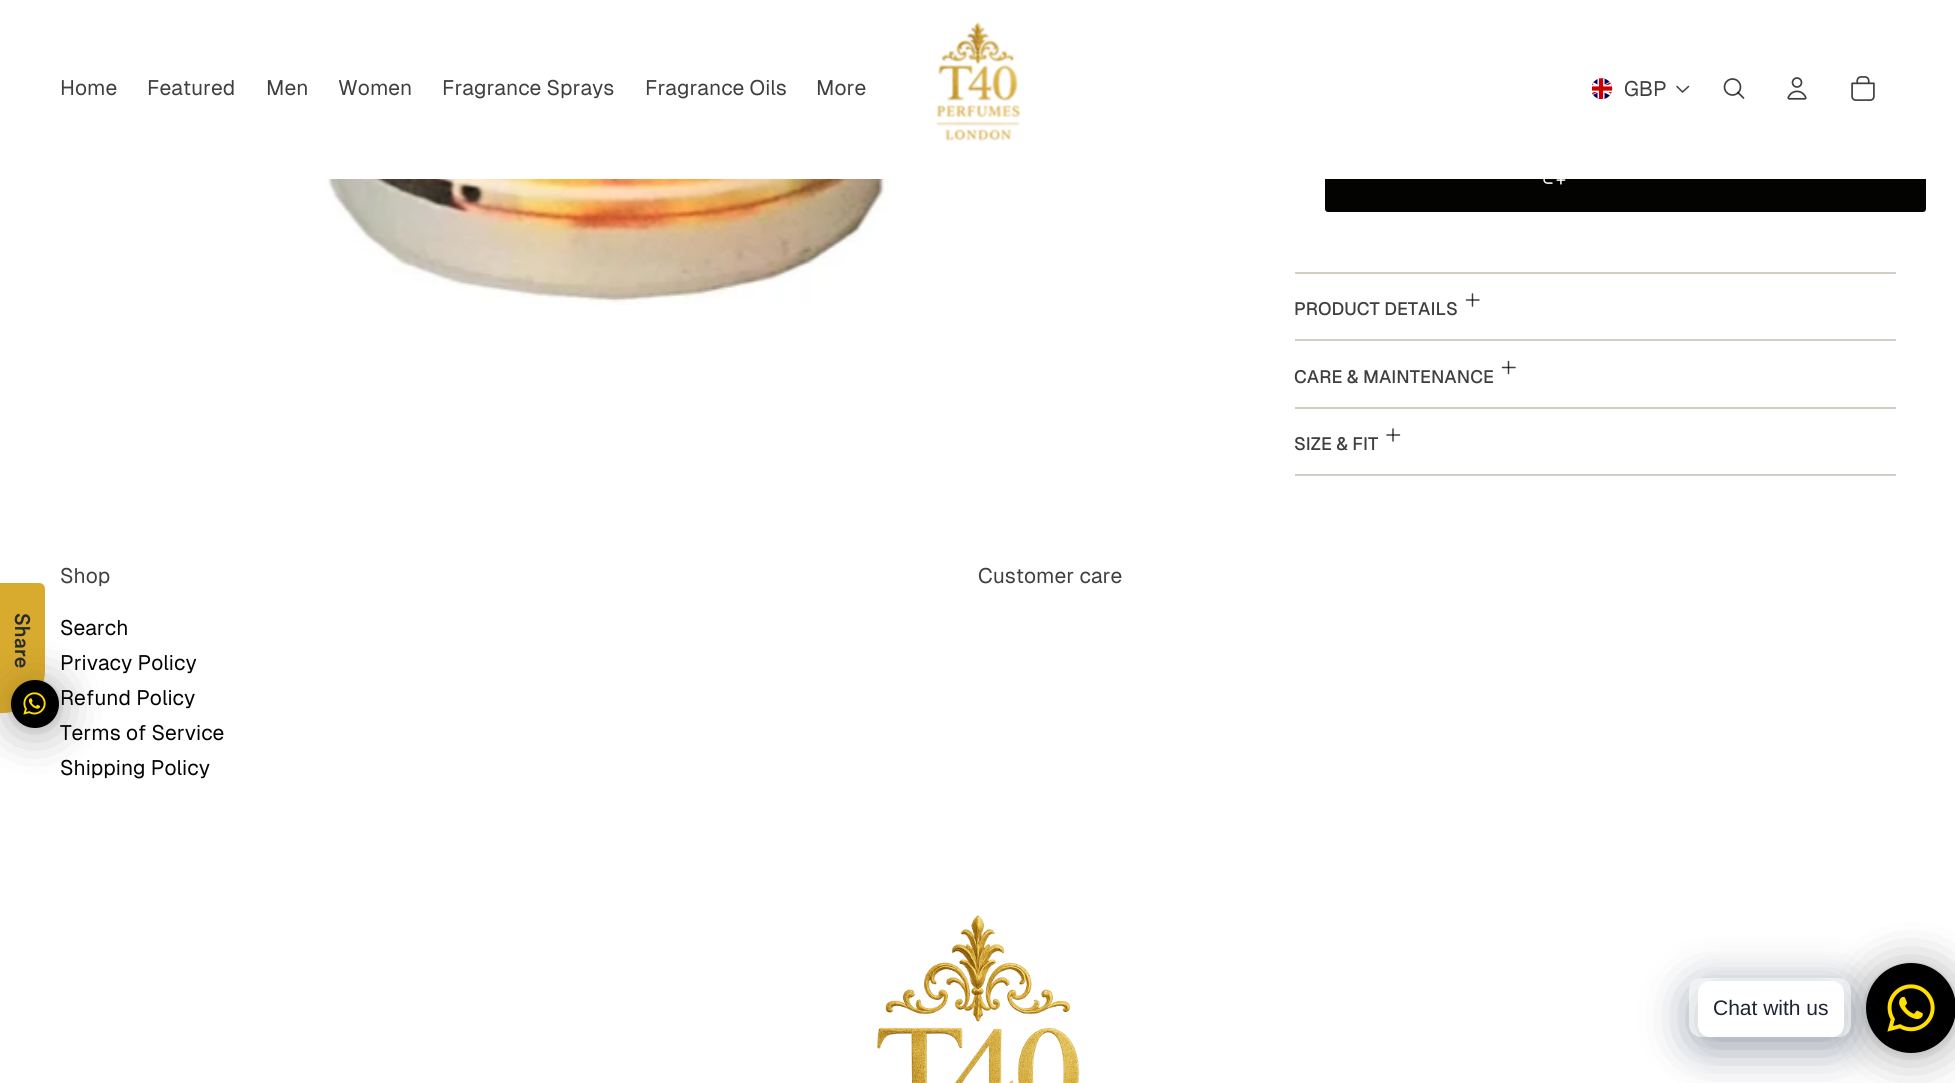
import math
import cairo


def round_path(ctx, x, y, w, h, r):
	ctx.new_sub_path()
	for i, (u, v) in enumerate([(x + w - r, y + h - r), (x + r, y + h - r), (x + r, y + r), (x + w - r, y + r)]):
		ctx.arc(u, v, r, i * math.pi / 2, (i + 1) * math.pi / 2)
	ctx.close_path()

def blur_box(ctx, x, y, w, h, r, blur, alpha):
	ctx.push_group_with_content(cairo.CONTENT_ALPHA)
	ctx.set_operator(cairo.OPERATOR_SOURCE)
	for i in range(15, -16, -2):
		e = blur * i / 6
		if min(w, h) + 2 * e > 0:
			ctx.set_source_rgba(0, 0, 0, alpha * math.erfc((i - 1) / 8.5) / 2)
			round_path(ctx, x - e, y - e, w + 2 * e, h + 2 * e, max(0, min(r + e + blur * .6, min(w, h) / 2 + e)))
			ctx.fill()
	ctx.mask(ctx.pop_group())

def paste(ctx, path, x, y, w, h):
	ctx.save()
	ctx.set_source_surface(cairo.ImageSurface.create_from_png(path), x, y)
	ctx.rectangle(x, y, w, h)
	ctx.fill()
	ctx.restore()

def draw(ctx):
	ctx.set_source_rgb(1, 1, 1)
	ctx.paint()
	ctx.set_source_rgb(0.012, 0.012, 0.008)
	round_path(ctx, 1326, 135, 599, 76, 2)
	ctx.fill_preserve()
	ctx.stroke()
	ctx.set_source_rgb(1, 1, 1)
	ctx.rectangle(1325, 134, 601, 45)
	ctx.fill()
	ctx.select_font_face('Geist')
	ctx.set_font_size(21)
	ctx.set_source_rgb(0.247, 0.247, 0.247)
	for x, y, s in [
		(60, 95, 'Home'),
		(147, 95, 'Featured'),
		(266, 95, 'Men'),
		(338, 95, 'Women'),
		(442, 95, 'Fragrance Sprays'),
		(645, 95, 'Fragrance Oils'),
		(816, 95, 'More'),
	]:
		ctx.move_to(x, y)
		ctx.show_text(s)
	paste(ctx, 'media/1.png', 936, 21, 85, 121)
	paste(ctx, 'media/2.png', 1592, 78, 21, 21)
	ctx.move_to(1624, 96)
	ctx.show_text('GBP')
	ctx.new_path()
	ctx.move_to(1688.5, 86.5)
	ctx.line_to(1682.5, 92)
	ctx.line_to(1677, 86.5)
	ctx.set_line_width(1.5)
	ctx.set_line_cap(cairo.LINE_CAP_ROUND)
	ctx.set_line_join(cairo.LINE_JOIN_ROUND)
	ctx.stroke()
	ctx.arc(1732.5, 87, 8, 0, 2 * math.pi)
	ctx.set_line_width(1.7)
	ctx.set_line_cap(cairo.LINE_CAP_BUTT)
	ctx.set_line_join(cairo.LINE_JOIN_MITER)
	ctx.stroke()
	ctx.new_path()
	ctx.move_to(1738, 92.5)
	ctx.line_to(1743.5, 98)
	ctx.set_source_rgba(0.012, 0.012, 0.008, 0.76)
	ctx.set_line_cap(cairo.LINE_CAP_ROUND)
	ctx.set_line_join(cairo.LINE_JOIN_ROUND)
	ctx.stroke()
	paste(ctx, 'media/3.png', 1787, 77, 20, 23)
	paste(ctx, 'media/4.png', 1851, 76, 24, 25)
	paste(ctx, 'media/5.png', 320, 179, 569, 126)
	paste(ctx, 'media/6.png', 1543, 179, 23, 6)
	ctx.set_source_rgb(0.827, 0.808, 0.773)
	ctx.rectangle(1295, 272, 601, 2)
	ctx.fill()
	ctx.select_font_face('Geist Medium')
	ctx.set_font_size(18)
	ctx.set_source_rgb(0.247, 0.247, 0.247)
	ctx.move_to(1294, 315)
	ctx.show_text('PRODUCT DETAILS')
	ctx.new_path()
	ctx.move_to(1466.5, 300)
	ctx.line_to(1479, 300)
	ctx.set_line_width(1.5)
	ctx.set_line_join(cairo.LINE_JOIN_MITER)
	ctx.stroke()
	ctx.new_path()
	ctx.move_to(1472.5, 294)
	ctx.line_to(1472.5, 306)
	ctx.set_source_rgba(0.012, 0.012, 0.008, 0.76)
	ctx.stroke()
	ctx.set_source_rgb(0.827, 0.808, 0.773)
	ctx.rectangle(1295, 339, 601, 2)
	ctx.fill()
	ctx.new_path()
	ctx.move_to(1502.5, 367.5)
	ctx.line_to(1515, 367.5)
	ctx.set_source_rgb(0.247, 0.247, 0.247)
	ctx.stroke()
	ctx.new_path()
	ctx.move_to(1508.5, 361.5)
	ctx.line_to(1508.5, 373.5)
	ctx.set_source_rgba(0.012, 0.012, 0.008, 0.76)
	ctx.stroke()
	ctx.set_source_rgb(0.247, 0.247, 0.247)
	ctx.move_to(1294, 383)
	ctx.show_text('CARE & MAINTENANCE')
	ctx.set_source_rgb(0.827, 0.808, 0.773)
	ctx.rectangle(1295, 407, 601, 2)
	ctx.fill()
	ctx.rectangle(1295, 474, 601, 2)
	ctx.fill()
	ctx.set_source_rgb(0.247, 0.247, 0.247)
	ctx.move_to(1294, 450)
	ctx.show_text('SIZE & FIT')
	ctx.new_path()
	ctx.move_to(1387, 435)
	ctx.line_to(1399.5, 435)
	ctx.stroke()
	ctx.new_path()
	ctx.move_to(1393, 429)
	ctx.line_to(1393, 441)
	ctx.set_source_rgba(0.012, 0.012, 0.008, 0.76)
	ctx.stroke()
	ctx.select_font_face('Geist')
	ctx.set_font_size(21)
	ctx.set_source_rgb(0.247, 0.247, 0.247)
	ctx.move_to(60, 583)
	ctx.show_text('Shop')
	ctx.set_source_rgb(0.012, 0.012, 0.008)
	for x, y, s in [
		(60, 635, 'Search'),
		(60, 670, 'Privacy Policy'),
		(60, 705, 'Refund Policy'),
		(60, 740, 'Terms of Service'),
		(60, 775, 'Shipping Policy'),
	]:
		ctx.move_to(x, y)
		ctx.show_text(s)
	ctx.set_source_rgb(0.247, 0.247, 0.247)
	ctx.move_to(978, 583)
	ctx.show_text('Customer care')
	ctx.set_source_rgb(0, 0, 0)
	blur_box(ctx, 11, 683, 48, 48, 24, 24, 0.16)
	blur_box(ctx, 11, 681, 48, 48, 24, 4.5, 0.06)
	ctx.set_source_rgb(0.847, 0.671, 0.18)
	ctx.new_path()
	ctx.move_to(0, 713)
	ctx.line_to(0, 583)
	ctx.line_to(39, 583)
	ctx.curve_to(42, 583, 45, 585, 45, 589)
	ctx.line_to(45, 671)
	ctx.curve_to(45, 694, 26, 713, 3, 713)
	ctx.close_path()
	ctx.fill()
	ctx.set_source_rgb(0, 0, 0)
	blur_box(ctx, 11, 683, 48, 48, 24, 24, 0.16)
	blur_box(ctx, 11, 681, 48, 48, 24, 4.5, 0.06)
	ctx.set_source_rgb(0, 0, 0)
	ctx.arc(35, 704, 24, 0, 2 * math.pi)
	ctx.fill()
	paste(ctx, 'media/7.png', 23, 692, 23, 23)
	ctx.select_font_face('Circular Medium')
	ctx.set_source_rgb(0.165, 0.173, 0.169)
	ctx.save()
	ctx.translate(15, 613)
	ctx.rotate(90 * math.pi / 180)
	ctx.move_to(0, 0)
	ctx.show_text('Share')
	ctx.restore()
	paste(ctx, 'media/8.png', 876, 915, 204, 168)
	ctx.set_source_rgb(0, 0, 0)
	blur_box(ctx, 1866, 966, 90, 90, 45, 24, 0.16)
	blur_box(ctx, 1866, 965, 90, 90, 45, 4.5, 0.06)
	ctx.set_source_rgb(0, 0.071, 0.18)
	blur_box(ctx, 1689, 987, 162, 59, 12, 24, 0.24)
	ctx.set_source_rgb(1, 1, 1)
	round_path(ctx, 1689, 978, 162, 59, 12)
	ctx.fill()
	ctx.set_source_rgb(0, 0, 0)
	blur_box(ctx, 1866, 966, 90, 90, 45, 24, 0.16)
	blur_box(ctx, 1866, 965, 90, 90, 45, 4.5, 0.06)
	ctx.set_source_rgb(0, 0, 0)
	ctx.arc(1911, 1008, 45, 0, 2 * math.pi)
	ctx.fill()
	ctx.set_source_rgb(0, 0.071, 0.18)
	blur_box(ctx, 1698, 990, 146, 56, 12, 24, 0.24)
	ctx.set_source_rgb(1, 1, 1)
	round_path(ctx, 1698, 981, 146, 56, 12)
	ctx.fill()
	ctx.select_font_face('Liberation Sans')
	ctx.set_source_rgb(0.118, 0.141, 0.2)
	ctx.move_to(1713, 1015)
	ctx.show_text('Chat with us')
	paste(ctx, 'media/9.png', 1887, 984, 48, 48)


surface = cairo.ImageSurface(cairo.FORMAT_RGB24, 1955, 1083)
ctx = cairo.Context(surface)
options = cairo.FontOptions()
options.set_hint_metrics(cairo.HINT_METRICS_OFF)
options.set_hint_style(cairo.HINT_STYLE_NONE)
ctx.set_font_options(options)
ctx.set_miter_limit(4)
draw(ctx)
surface.write_to_png('image.png')
